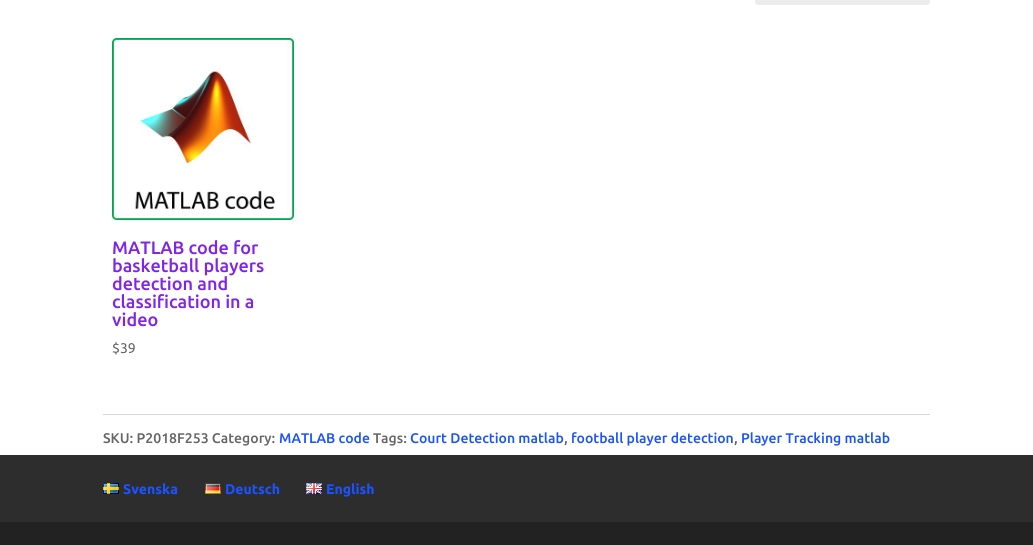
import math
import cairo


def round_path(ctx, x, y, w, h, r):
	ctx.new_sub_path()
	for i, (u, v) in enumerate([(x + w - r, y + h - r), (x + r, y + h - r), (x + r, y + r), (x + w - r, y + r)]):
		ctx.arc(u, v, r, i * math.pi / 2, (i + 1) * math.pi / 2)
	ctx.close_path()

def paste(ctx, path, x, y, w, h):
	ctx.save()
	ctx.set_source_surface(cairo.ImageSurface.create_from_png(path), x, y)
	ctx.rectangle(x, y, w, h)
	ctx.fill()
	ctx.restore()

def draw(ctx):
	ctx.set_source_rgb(1, 1, 1)
	ctx.paint()
	ctx.set_source_rgb(0.925, 0.925, 0.925)
	round_path(ctx, 755, -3, 175, 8, 3)
	ctx.fill()
	paste(ctx, 'media/1.png', 112, 38, 182, 182)
	ctx.select_font_face('Ubuntu Medium')
	ctx.set_font_size(18)
	ctx.set_source_rgb(0.51, 0.141, 0.89)
	for x, y, s in [
		(112, 254, 'MATLAB code for'),
		(112, 272, 'basketball players'),
		(112, 290, 'detection and'),
		(112, 308, 'classification in a'),
		(112, 326, 'video'),
	]:
		ctx.move_to(x, y)
		ctx.show_text(s)
	ctx.select_font_face('Ubuntu')
	ctx.set_font_size(14)
	ctx.set_source_rgb(0.4, 0.4, 0.4)
	ctx.move_to(112, 353)
	ctx.show_text('$39')
	ctx.set_source_rgb(0.855, 0.855, 0.855)
	ctx.rectangle(103, 414, 827, 1)
	ctx.fill()
	ctx.select_font_face('Ubuntu Medium')
	ctx.set_source_rgb(0.4, 0.4, 0.4)
	ctx.move_to(103, 443)
	ctx.show_text('SKU: P2018F253 Category:')
	ctx.set_source_rgb(0.102, 0.325, 1)
	ctx.move_to(279, 443)
	ctx.show_text('MATLAB code')
	ctx.set_source_rgb(0.4, 0.4, 0.4)
	ctx.move_to(373, 443)
	ctx.show_text('Tags:')
	ctx.set_source_rgb(0.102, 0.325, 1)
	ctx.move_to(410, 443)
	ctx.show_text('Court Detection matlab')
	ctx.set_source_rgb(0.4, 0.4, 0.4)
	ctx.move_to(564, 443)
	ctx.show_text(',')
	ctx.set_source_rgb(0.102, 0.325, 1)
	ctx.move_to(571, 443)
	ctx.show_text('football player detection')
	ctx.set_source_rgb(0.4, 0.4, 0.4)
	ctx.move_to(734, 443)
	ctx.show_text(',')
	ctx.set_source_rgb(0.102, 0.325, 1)
	ctx.move_to(741, 443)
	ctx.show_text('Player Tracking matlab')
	ctx.set_source_rgb(0.133, 0.133, 0.133)
	ctx.rectangle(0, 522, 1033, 23)
	ctx.fill()
	ctx.set_source_rgb(0.176, 0.176, 0.176)
	ctx.rectangle(0, 455, 1033, 67)
	ctx.fill()
	paste(ctx, 'media/2.png', 103, 483, 16, 11)
	ctx.select_font_face('Ubuntu', cairo.FONT_SLANT_NORMAL, cairo.FONT_WEIGHT_BOLD)
	ctx.set_source_rgb(0.102, 0.325, 1)
	ctx.move_to(123, 494)
	ctx.show_text('Svenska')
	paste(ctx, 'media/3.png', 205, 483, 16, 11)
	ctx.move_to(225, 494)
	ctx.show_text('Deutsch')
	paste(ctx, 'media/4.png', 306, 483, 16, 11)
	ctx.move_to(326, 494)
	ctx.show_text('English')


surface = cairo.ImageSurface(cairo.FORMAT_RGB24, 1033, 545)
ctx = cairo.Context(surface)
options = cairo.FontOptions()
options.set_hint_metrics(cairo.HINT_METRICS_OFF)
options.set_hint_style(cairo.HINT_STYLE_NONE)
ctx.set_font_options(options)
ctx.set_miter_limit(4)
draw(ctx)
surface.write_to_png('image.png')
